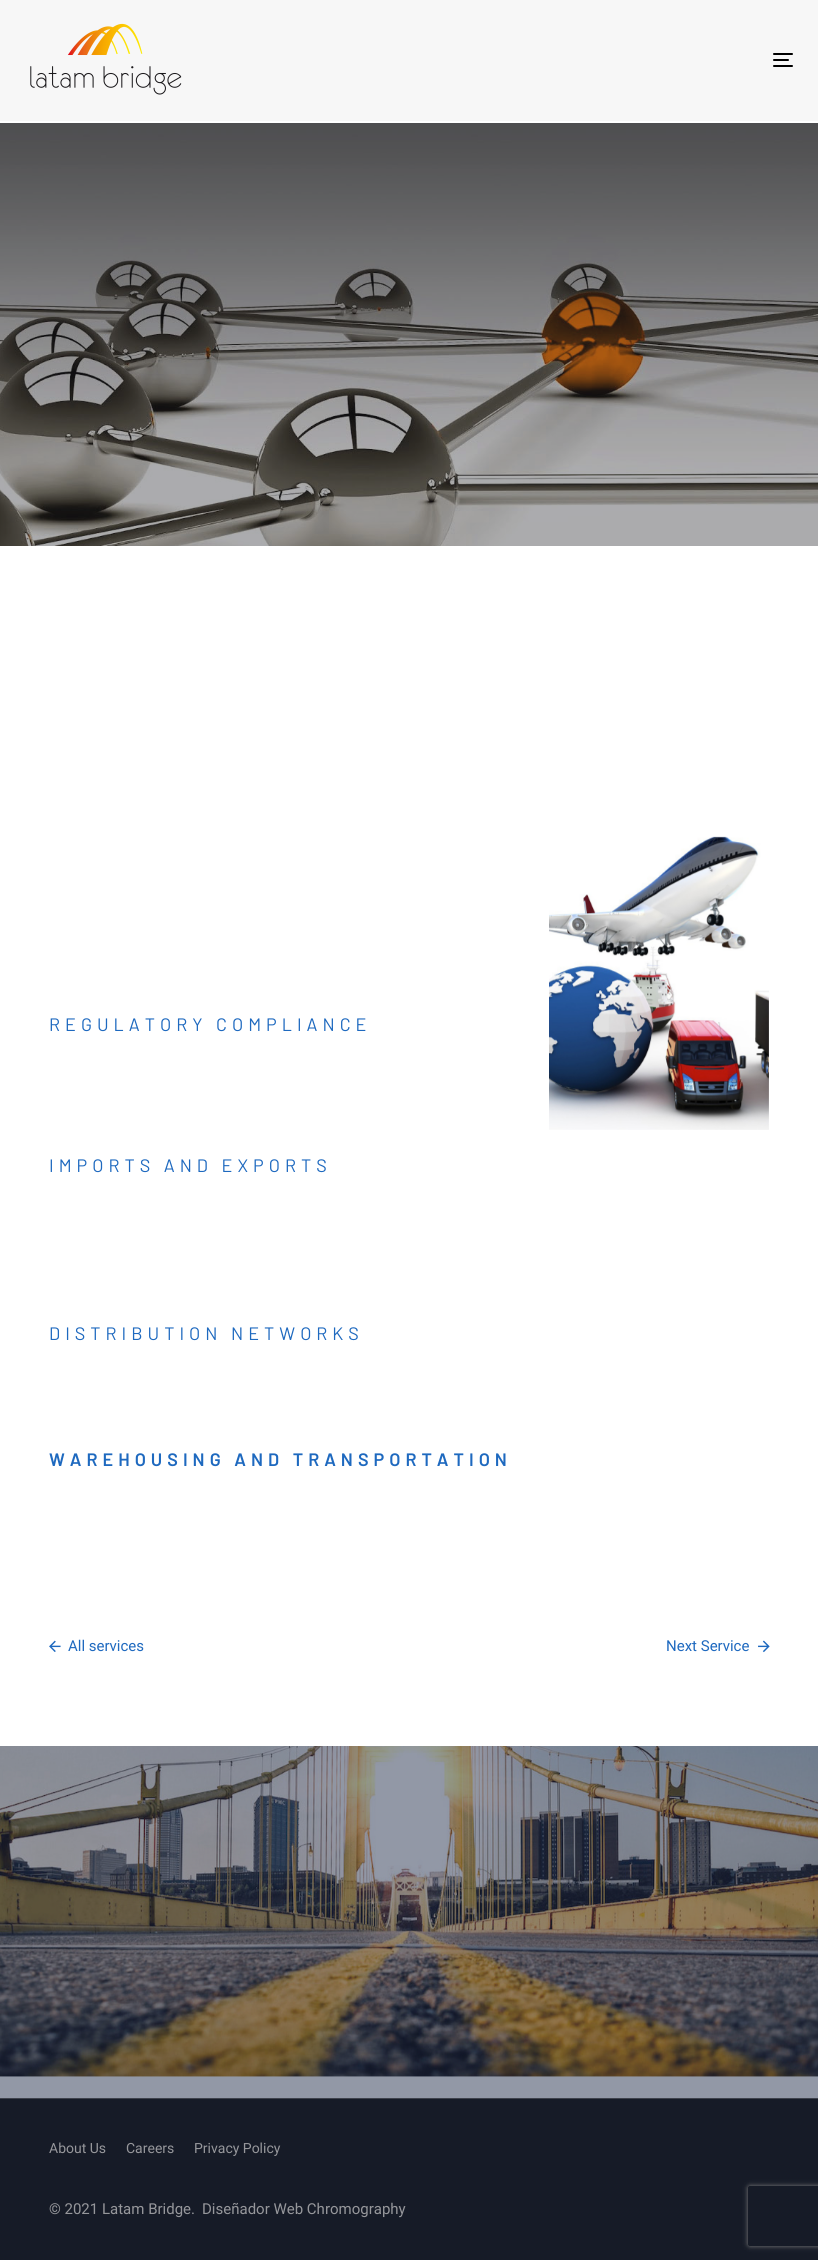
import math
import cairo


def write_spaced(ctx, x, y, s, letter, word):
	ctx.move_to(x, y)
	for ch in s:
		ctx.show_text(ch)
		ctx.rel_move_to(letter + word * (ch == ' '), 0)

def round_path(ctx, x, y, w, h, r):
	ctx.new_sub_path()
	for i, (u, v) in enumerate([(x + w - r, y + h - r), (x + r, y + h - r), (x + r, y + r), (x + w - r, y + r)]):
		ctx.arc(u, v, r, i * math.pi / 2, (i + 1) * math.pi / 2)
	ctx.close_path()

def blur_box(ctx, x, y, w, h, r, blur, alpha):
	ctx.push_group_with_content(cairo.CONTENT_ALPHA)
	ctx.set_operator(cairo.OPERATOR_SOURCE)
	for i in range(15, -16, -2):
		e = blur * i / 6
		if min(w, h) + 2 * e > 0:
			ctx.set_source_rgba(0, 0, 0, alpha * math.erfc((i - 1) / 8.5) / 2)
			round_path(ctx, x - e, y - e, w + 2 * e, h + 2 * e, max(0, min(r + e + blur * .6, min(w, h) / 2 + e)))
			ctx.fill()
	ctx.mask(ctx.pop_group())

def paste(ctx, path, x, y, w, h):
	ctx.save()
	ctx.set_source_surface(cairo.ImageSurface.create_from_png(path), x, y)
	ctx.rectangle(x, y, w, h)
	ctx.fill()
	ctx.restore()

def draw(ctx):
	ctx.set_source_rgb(1, 1, 1)
	ctx.paint()
	ctx.set_source_rgb(0.573, 0.596, 0.651)
	ctx.rectangle(0, 2076, 818, 22)
	ctx.fill()
	ctx.set_source_rgb(0.965, 0.965, 0.965)
	ctx.rectangle(0, 0, 818, 121)
	ctx.fill()
	paste(ctx, 'media/1.png', 30, 23, 152, 72)
	ctx.set_source_rgb(0, 0, 0)
	round_path(ctx, 773, 53, 20, 2, 1)
	ctx.fill()
	round_path(ctx, 773, 59, 16, 2, 1)
	ctx.fill()
	round_path(ctx, 773, 65, 20, 2, 1)
	ctx.fill()
	paste(ctx, 'media/2.png', 0, 123, 818, 423)
	paste(ctx, 'media/3.png', 549, 836, 220, 294)
	ctx.select_font_face('Barlow')
	ctx.set_font_size(18)
	ctx.set_source_rgb(0.118, 0.412, 0.749)
	for x, y, s in [
		(49, 1031, 'REGULATORY COMPLIANCE'),
		(49, 1172, 'IMPORTS AND EXPORTS'),
		(49, 1340, 'DISTRIBUTION NETWORKS'),
	]:
		write_spaced(ctx, x, y, s, 5, 0)
	ctx.select_font_face('Barlow SemiBold')
	write_spaced(ctx, 49, 1466, 'WAREHOUSING AND TRANSPORTATION', 5, 0)
	paste(ctx, 'media/4.png', 49, 1640, 12, 12)
	ctx.select_font_face('Roboto')
	ctx.set_font_size(15)
	ctx.move_to(68, 1651)
	ctx.show_text('All services')
	ctx.move_to(666, 1651)
	ctx.show_text('Next Service')
	paste(ctx, 'media/5.png', 758, 1640, 12, 13)
	paste(ctx, 'media/6.png', 0, 1746, 818, 331)
	ctx.set_source_rgb(0.086, 0.106, 0.153)
	ctx.rectangle(0, 2099, 818, 161)
	ctx.fill()
	ctx.set_source_rgb(0.243, 0.259, 0.298)
	ctx.rectangle(0, 2098, 818, 1)
	ctx.fill()
	ctx.set_font_size(14)
	ctx.set_source_rgb(0.588, 0.592, 0.608)
	for x, y, s in [
		(49, 2153, 'About Us'),
		(126, 2153, 'Careers'),
		(194, 2153, 'Privacy Policy'),
	]:
		ctx.move_to(x, y)
		ctx.show_text(s)
	ctx.set_font_size(15)
	ctx.move_to(49, 2214)
	ctx.show_text('© 2021 Latam Bridge.')
	ctx.move_to(202, 2214)
	ctx.show_text('Diseñador Web Chromography')
	ctx.save()
	ctx.set_fill_rule(cairo.FILL_RULE_EVEN_ODD)
	ctx.new_path()
	ctx.move_to(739, 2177)
	ctx.line_to(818, 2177)
	ctx.line_to(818, 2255)
	ctx.line_to(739, 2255)
	ctx.close_path()
	ctx.move_to(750, 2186)
	ctx.line_to(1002, 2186)
	ctx.curve_to(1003, 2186, 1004, 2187, 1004, 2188)
	ctx.line_to(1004, 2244)
	ctx.curve_to(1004, 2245, 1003, 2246, 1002, 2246)
	ctx.line_to(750, 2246)
	ctx.curve_to(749, 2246, 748, 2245, 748, 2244)
	ctx.line_to(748, 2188)
	ctx.curve_to(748, 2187, 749, 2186, 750, 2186)
	ctx.close_path()
	ctx.clip()
	ctx.set_source_rgb(0.502, 0.502, 0.502)
	blur_box(ctx, 748, 2186, 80, 60, 2, 2.5, 1)
	ctx.restore()


surface = cairo.ImageSurface(cairo.FORMAT_RGB24, 818, 2260)
ctx = cairo.Context(surface)
options = cairo.FontOptions()
options.set_hint_metrics(cairo.HINT_METRICS_OFF)
options.set_hint_style(cairo.HINT_STYLE_NONE)
ctx.set_font_options(options)
ctx.set_miter_limit(4)
draw(ctx)
surface.write_to_png('image.png')
